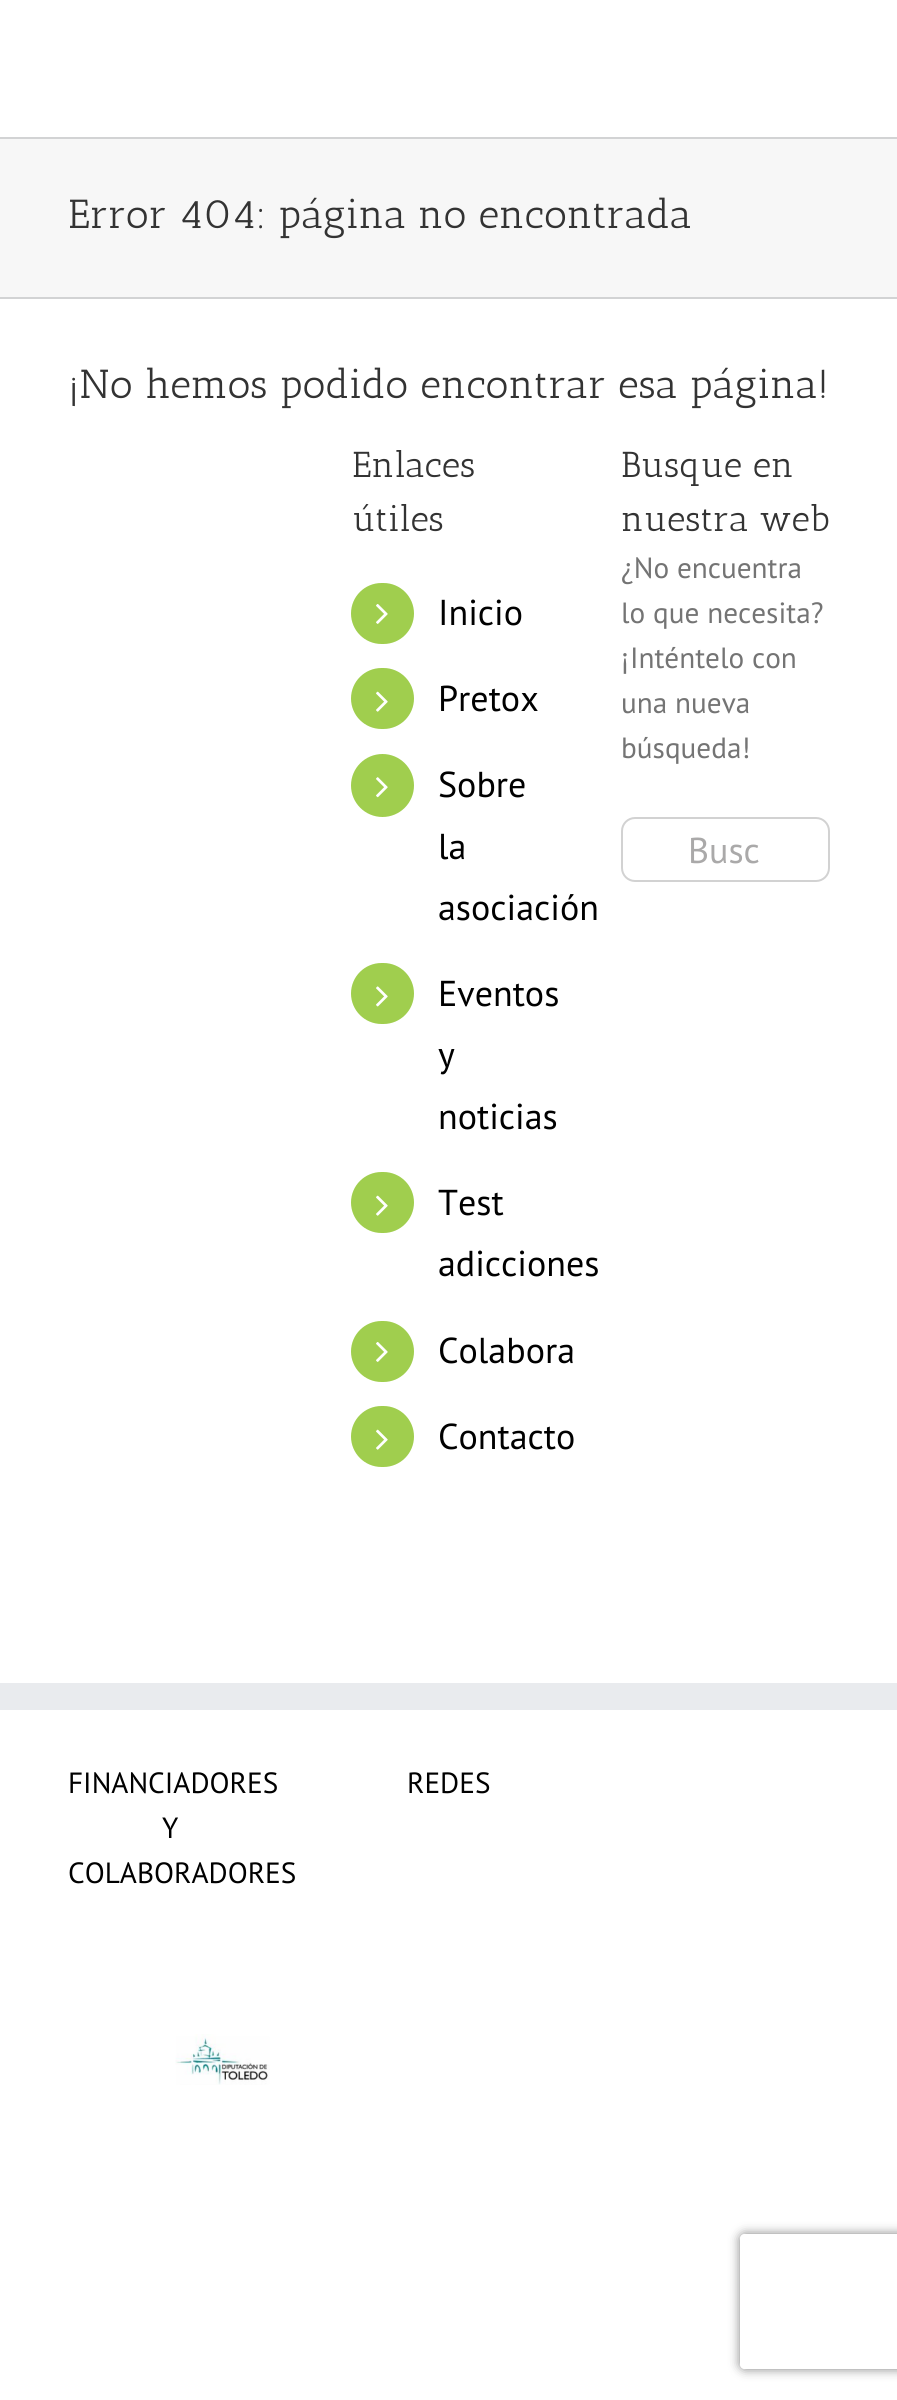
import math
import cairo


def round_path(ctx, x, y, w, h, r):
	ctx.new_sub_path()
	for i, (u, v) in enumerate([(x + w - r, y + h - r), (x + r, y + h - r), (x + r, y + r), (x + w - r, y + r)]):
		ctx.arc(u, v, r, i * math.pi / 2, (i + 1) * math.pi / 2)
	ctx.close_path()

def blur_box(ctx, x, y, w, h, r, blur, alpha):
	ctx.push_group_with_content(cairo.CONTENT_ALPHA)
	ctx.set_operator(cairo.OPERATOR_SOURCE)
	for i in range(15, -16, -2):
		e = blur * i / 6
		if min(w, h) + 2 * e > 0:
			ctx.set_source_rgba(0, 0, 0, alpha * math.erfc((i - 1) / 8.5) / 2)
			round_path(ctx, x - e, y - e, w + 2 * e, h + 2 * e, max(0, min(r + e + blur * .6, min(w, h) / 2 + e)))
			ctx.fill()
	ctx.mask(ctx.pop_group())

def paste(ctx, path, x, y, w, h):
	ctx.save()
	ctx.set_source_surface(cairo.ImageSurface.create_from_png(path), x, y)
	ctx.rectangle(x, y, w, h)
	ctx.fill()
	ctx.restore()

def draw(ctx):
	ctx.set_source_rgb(1, 1, 1)
	ctx.paint()
	ctx.set_source_rgb(0.965, 0.965, 0.965)
	ctx.rectangle(0, 139, 897, 158)
	ctx.fill()
	ctx.set_source_rgb(0.824, 0.827, 0.831)
	ctx.rectangle(0, 137, 897, 2)
	ctx.rectangle(0, 297, 897, 2)
	ctx.fill()
	ctx.select_font_face('Antic Slab')
	ctx.set_font_size(40.5)
	ctx.set_source_rgb(0.2, 0.2, 0.2)
	ctx.move_to(68, 228)
	ctx.show_text('Error 404: página no encontrada')
	ctx.move_to(68, 398)
	ctx.show_text('¡No hemos podido encontrar esa página!')
	ctx.set_font_size(36)
	ctx.move_to(352, 477)
	ctx.show_text('Enlaces')
	ctx.move_to(352, 531)
	ctx.show_text('útiles')
	ctx.set_source_rgb(0.627, 0.808, 0.306)
	round_path(ctx, 351, 583, 63, 61, 30.5)
	ctx.fill()
	paste(ctx, 'media/1.png', 376, 604, 12, 20)
	ctx.select_font_face('PT Sans')
	ctx.set_source_rgb(0, 0, 0)
	ctx.move_to(438, 625)
	ctx.show_text('Inicio')
	ctx.set_source_rgb(0.627, 0.808, 0.306)
	round_path(ctx, 351, 668, 63, 61, 30.5)
	ctx.fill()
	paste(ctx, 'media/2.png', 376, 691, 12, 21)
	ctx.set_source_rgb(0, 0, 0)
	ctx.move_to(438, 711)
	ctx.show_text('Pretox')
	ctx.set_source_rgb(0.627, 0.808, 0.306)
	ctx.new_path()
	ctx.arc(382.5, 785.5, 31.5, 0, 2 * math.pi)
	ctx.fill()
	paste(ctx, 'media/3.png', 376, 777, 12, 21)
	ctx.set_source_rgb(0, 0, 0)
	for x, y, s in [
		(438, 797, 'Sobre'),
		(438, 859, 'la'),
		(438, 920, 'asociación'),
	]:
		ctx.move_to(x, y)
		ctx.show_text(s)
	ctx.set_source_rgb(0.627, 0.808, 0.306)
	round_path(ctx, 351, 963, 63, 61, 30.5)
	ctx.fill()
	paste(ctx, 'media/4.png', 376, 986, 12, 21)
	ctx.set_source_rgb(0, 0, 0)
	for x, y, s in [
		(438, 1006, 'Eventos'),
		(438, 1067, 'y'),
		(438, 1129, 'noticias'),
	]:
		ctx.move_to(x, y)
		ctx.show_text(s)
	ctx.set_source_rgb(0.627, 0.808, 0.306)
	round_path(ctx, 351, 1172, 63, 61, 30.5)
	ctx.fill()
	paste(ctx, 'media/2.png', 376, 1195, 12, 21)
	ctx.set_source_rgb(0, 0, 0)
	ctx.move_to(438, 1215)
	ctx.show_text('Test')
	ctx.move_to(438, 1276)
	ctx.show_text('adicciones')
	ctx.set_source_rgb(0.627, 0.808, 0.306)
	round_path(ctx, 351, 1321, 63, 61, 30.5)
	ctx.fill()
	paste(ctx, 'media/1.png', 376, 1342, 12, 20)
	ctx.set_source_rgb(0, 0, 0)
	ctx.move_to(438, 1363)
	ctx.show_text('Colabora')
	ctx.set_source_rgb(0.627, 0.808, 0.306)
	round_path(ctx, 351, 1406, 63, 61, 30.5)
	ctx.fill()
	paste(ctx, 'media/2.png', 376, 1429, 12, 21)
	ctx.set_source_rgb(0, 0, 0)
	ctx.move_to(438, 1449)
	ctx.show_text('Contacto')
	ctx.select_font_face('Antic Slab')
	ctx.set_source_rgb(0.2, 0.2, 0.2)
	ctx.move_to(621, 477)
	ctx.show_text('Busque en')
	ctx.move_to(621, 531)
	ctx.show_text('nuestra web')
	ctx.select_font_face('PT Sans')
	ctx.set_font_size(29.25)
	ctx.set_source_rgb(0.455, 0.455, 0.455)
	for x, y, s in [
		(621, 578, '¿No encuentra'),
		(621, 623, 'lo que necesita?'),
		(621, 668, '¡Inténtelo con'),
		(621, 713, 'una nueva'),
		(621, 758, 'búsqueda!'),
	]:
		ctx.move_to(x, y)
		ctx.show_text(s)
	round_path(ctx, 622, 818, 207, 63, 13)
	ctx.set_source_rgb(0.824, 0.824, 0.824)
	ctx.stroke()
	ctx.set_font_size(36)
	ctx.set_source_rgb(0.667, 0.663, 0.663)
	ctx.move_to(688, 863)
	ctx.show_text('Busc')
	ctx.set_source_rgb(0.914, 0.918, 0.933)
	ctx.rectangle(0, 1683, 897, 27)
	ctx.fill()
	ctx.set_font_size(29.25)
	ctx.set_source_rgb(0, 0, 0)
	for x, y, s in [
		(68, 1793, 'FINANCIADORES'),
		(162, 1838, 'Y'),
		(68, 1883, 'COLABORADORES'),
	]:
		ctx.move_to(x, y)
		ctx.show_text(s)
	paste(ctx, 'media/5.png', 175, 2034, 95, 51)
	ctx.move_to(407, 1793)
	ctx.show_text('REDES')
	ctx.save()
	ctx.set_fill_rule(cairo.FILL_RULE_EVEN_ODD)
	ctx.new_path()
	ctx.move_to(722, 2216)
	ctx.line_to(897, 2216)
	ctx.line_to(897, 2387)
	ctx.line_to(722, 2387)
	ctx.close_path()
	ctx.move_to(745, 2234)
	ctx.line_to(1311, 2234)
	ctx.curve_to(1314, 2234, 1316, 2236, 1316, 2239)
	ctx.line_to(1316, 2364)
	ctx.curve_to(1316, 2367, 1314, 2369, 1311, 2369)
	ctx.line_to(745, 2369)
	ctx.curve_to(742, 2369, 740, 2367, 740, 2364)
	ctx.line_to(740, 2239)
	ctx.curve_to(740, 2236, 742, 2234, 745, 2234)
	ctx.close_path()
	ctx.clip()
	ctx.set_source_rgb(0.502, 0.502, 0.502)
	blur_box(ctx, 740, 2234, 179, 135, 5, 5.5, 1)
	ctx.restore()


surface = cairo.ImageSurface(cairo.FORMAT_RGB24, 897, 2400)
ctx = cairo.Context(surface)
options = cairo.FontOptions()
options.set_hint_metrics(cairo.HINT_METRICS_OFF)
options.set_hint_style(cairo.HINT_STYLE_NONE)
ctx.set_font_options(options)
ctx.set_miter_limit(4)
draw(ctx)
surface.write_to_png('image.png')
